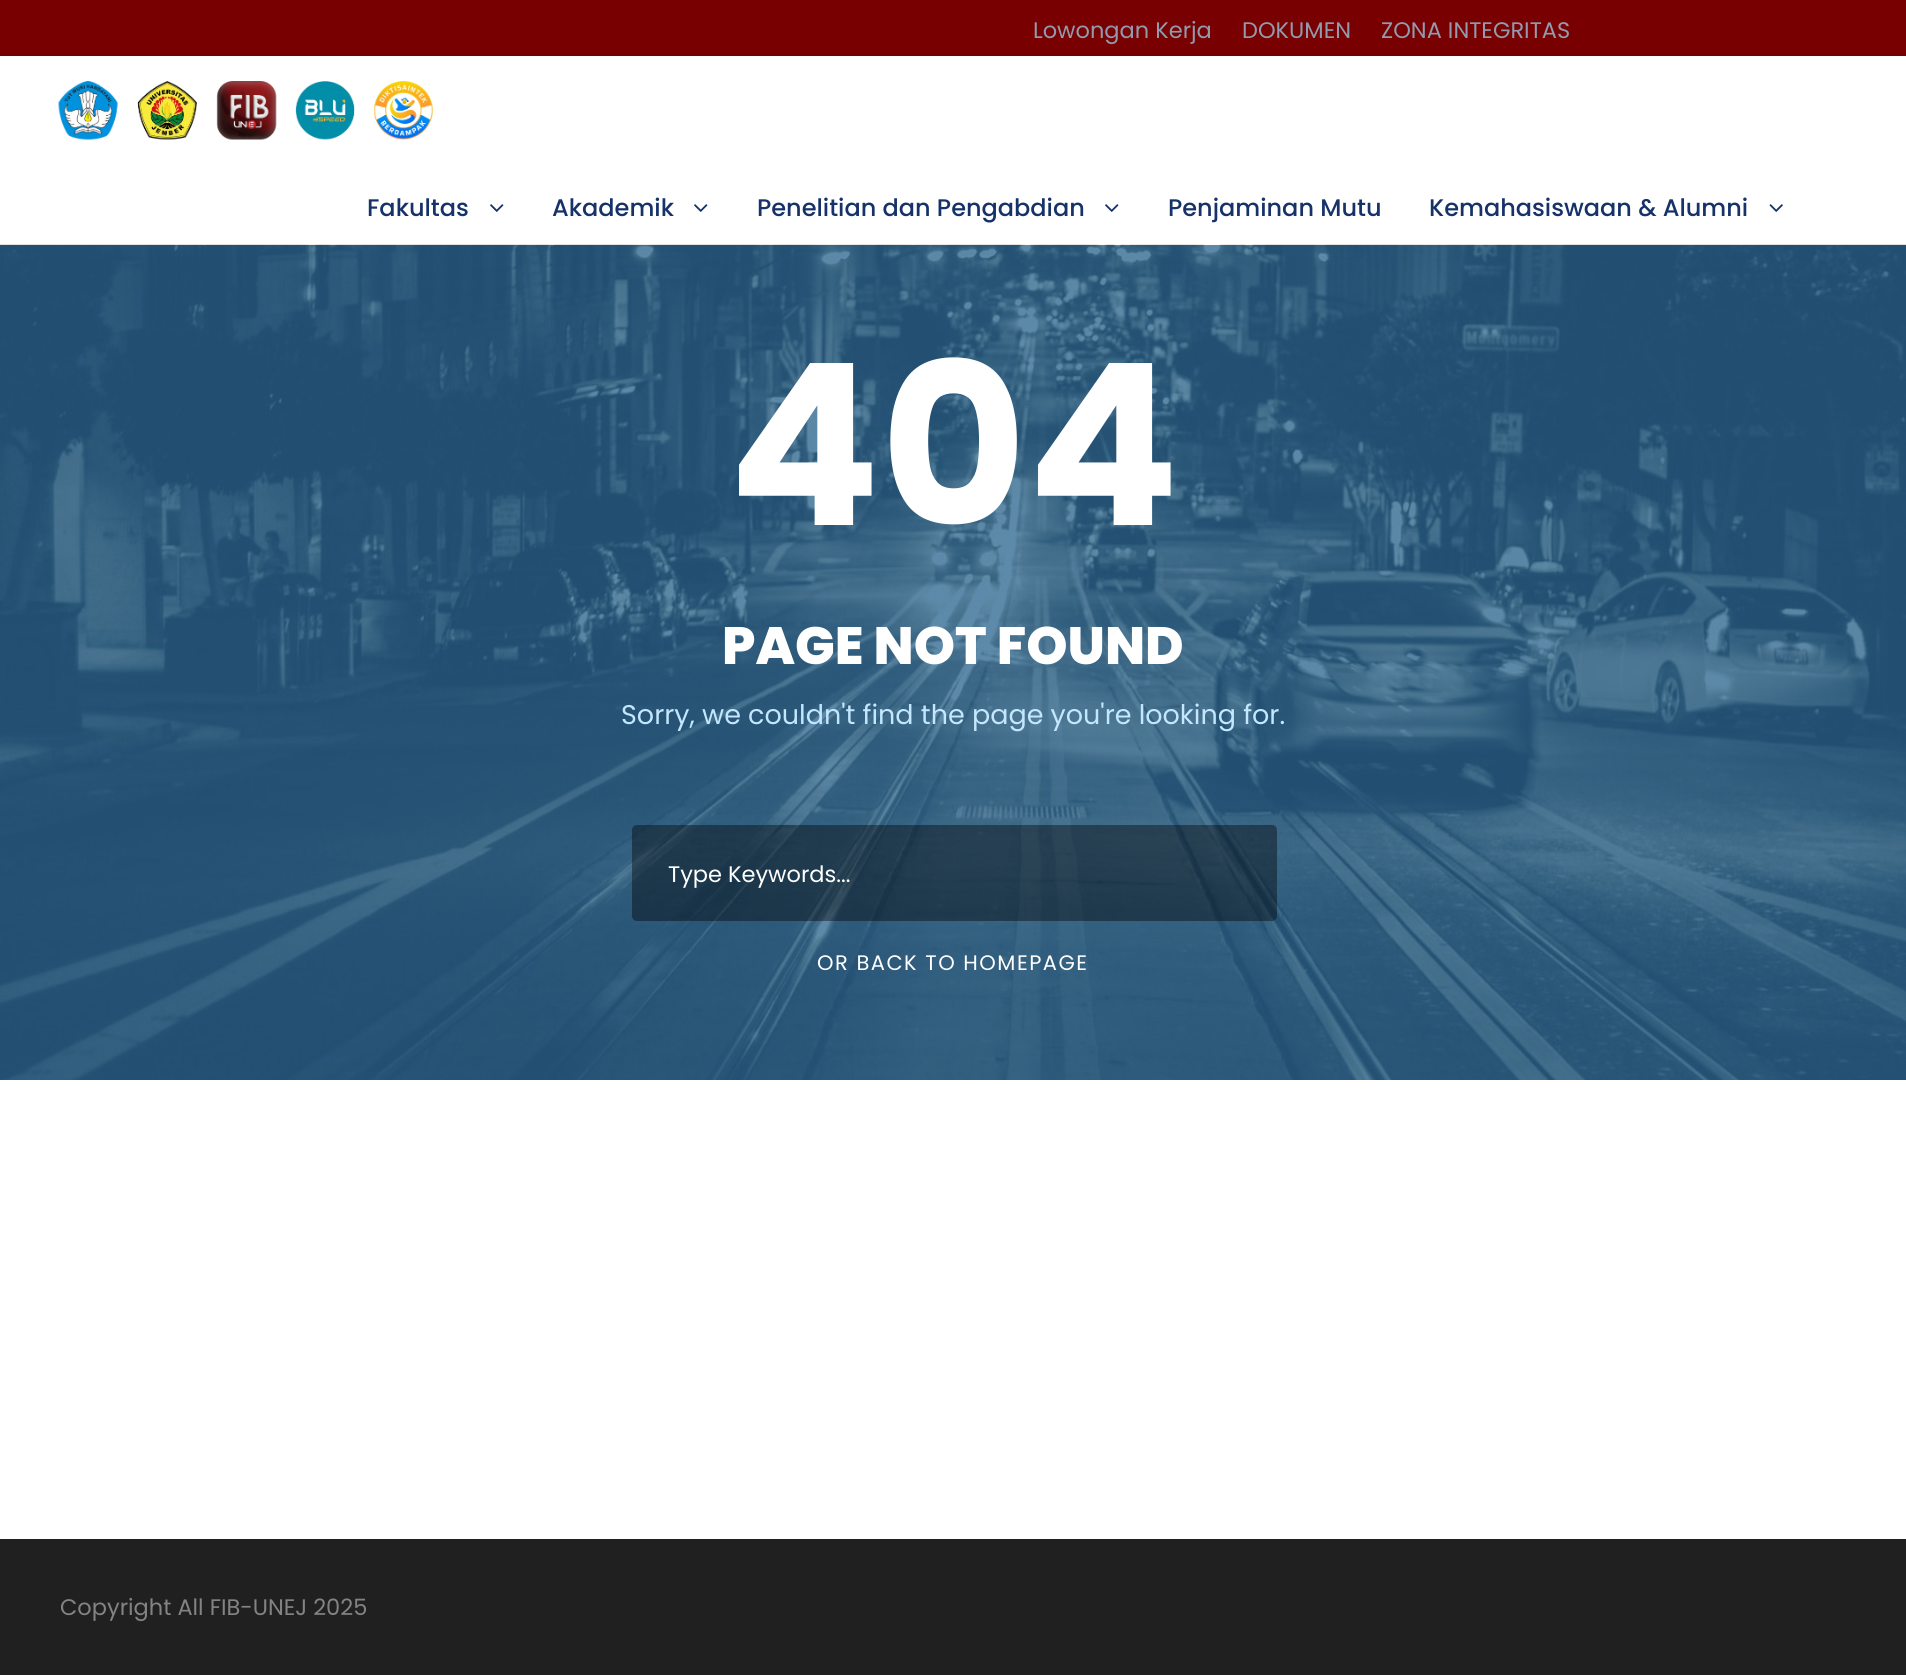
import math
import cairo


def write_spaced(ctx, x, y, s, letter, word):
	ctx.move_to(x, y)
	for ch in s:
		ctx.show_text(ch)
		ctx.rel_move_to(letter + word * (ch == ' '), 0)

def round_path(ctx, x, y, w, h, r):
	ctx.new_sub_path()
	for i, (u, v) in enumerate([(x + w - r, y + h - r), (x + r, y + h - r), (x + r, y + r), (x + w - r, y + r)]):
		ctx.arc(u, v, r, i * math.pi / 2, (i + 1) * math.pi / 2)
	ctx.close_path()

def blur_box(ctx, x, y, w, h, r, blur, alpha):
	ctx.push_group_with_content(cairo.CONTENT_ALPHA)
	ctx.set_operator(cairo.OPERATOR_SOURCE)
	for i in range(15, -16, -2):
		e = blur * i / 6
		if min(w, h) + 2 * e > 0:
			ctx.set_source_rgba(0, 0, 0, alpha * math.erfc((i - 1) / 8.5) / 2)
			round_path(ctx, x - e, y - e, w + 2 * e, h + 2 * e, max(0, min(r + e + blur * .6, min(w, h) / 2 + e)))
			ctx.fill()
	ctx.mask(ctx.pop_group())

def paste(ctx, path, x, y, w, h):
	ctx.save()
	ctx.set_source_surface(cairo.ImageSurface.create_from_png(path), x, y)
	ctx.rectangle(x, y, w, h)
	ctx.fill()
	ctx.restore()

def draw(ctx):
	ctx.set_source_rgb(1, 1, 1)
	ctx.paint()
	ctx.set_source_rgb(0.471, 0, 0)
	ctx.rectangle(0, 0, 1906, 56)
	ctx.fill()
	ctx.select_font_face('Poppins')
	ctx.set_font_size(22.5)
	ctx.set_source_rgb(0.569, 0.608, 0.678)
	for x, y, s in [
		(1033, 38, 'Lowongan Kerja'),
		(1242, 38, 'DOKUMEN'),
		(1381, 38, 'ZONA INTEGRITAS'),
	]:
		ctx.move_to(x, y)
		ctx.show_text(s)
	ctx.set_source_rgb(0, 0, 0)
	blur_box(ctx, 0, 57, 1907, 189, 0, 3, 0.1)
	ctx.set_source_rgb(1, 1, 1)
	ctx.rectangle(0, 56, 1906, 189)
	ctx.fill()
	paste(ctx, 'media/1.png', 58, 81, 375, 59)
	ctx.select_font_face('Poppins Medium')
	ctx.set_font_size(24)
	ctx.set_source_rgb(0.086, 0.196, 0.412)
	ctx.move_to(367, 216)
	ctx.show_text('Fakultas')
	paste(ctx, 'media/2.png', 490, 204, 14, 8)
	ctx.move_to(552, 216)
	ctx.show_text('Akademik')
	paste(ctx, 'media/2.png', 694, 204, 14, 8)
	ctx.move_to(757, 216)
	ctx.show_text('Penelitian dan Pengabdian')
	paste(ctx, 'media/2.png', 1105, 204, 14, 8)
	ctx.move_to(1168, 216)
	ctx.show_text('Penjaminan Mutu')
	ctx.move_to(1429, 216)
	ctx.show_text('Kemahasiswaan & Alumni')
	paste(ctx, 'media/3.png', 1769, 204, 14, 8)
	ctx.set_source_rgb(0.137, 0.38, 0.557)
	ctx.rectangle(0, 245, 1906, 835)
	ctx.fill()
	paste(ctx, 'media/4.png', 0, 244, 1906, 836)
	ctx.select_font_face('Poppins', cairo.FONT_SLANT_NORMAL, cairo.FONT_WEIGHT_BOLD)
	ctx.set_font_size(225)
	ctx.set_source_rgb(1, 1, 1)
	ctx.move_to(728, 525)
	ctx.show_text('404')
	ctx.select_font_face('Poppins ExtraBold')
	ctx.set_font_size(52.5)
	ctx.move_to(722, 664)
	ctx.show_text('PAGE NOT FOUND')
	ctx.select_font_face('Poppins')
	ctx.set_font_size(27)
	ctx.set_source_rgb(0.765, 0.906, 1)
	ctx.move_to(621, 724)
	ctx.show_text('Sorry, we couldn\'t find the page you\'re looking for.')
	ctx.set_source_rgba(0, 0, 0, 0.4)
	round_path(ctx, 632, 825, 645, 96, 5)
	ctx.fill()
	ctx.set_font_size(22.5)
	ctx.set_source_rgb(1, 1, 1)
	ctx.move_to(668, 882)
	ctx.show_text('Type Keywords...')
	ctx.set_font_size(21)
	write_spaced(ctx, 817, 970, 'OR BACK TO HOMEPAGE', 1.5, 0)
	ctx.set_source_rgb(0.125, 0.125, 0.125)
	ctx.rectangle(0, 1539, 1906, 136)
	ctx.fill()
	ctx.set_font_size(22.5)
	ctx.set_source_rgb(0.514, 0.514, 0.514)
	ctx.move_to(60, 1615)
	ctx.show_text('Copyright All FIB-UNEJ 2025')


surface = cairo.ImageSurface(cairo.FORMAT_RGB24, 1906, 1675)
ctx = cairo.Context(surface)
options = cairo.FontOptions()
options.set_hint_metrics(cairo.HINT_METRICS_OFF)
options.set_hint_style(cairo.HINT_STYLE_NONE)
ctx.set_font_options(options)
ctx.set_miter_limit(4)
draw(ctx)
surface.write_to_png('image.png')
